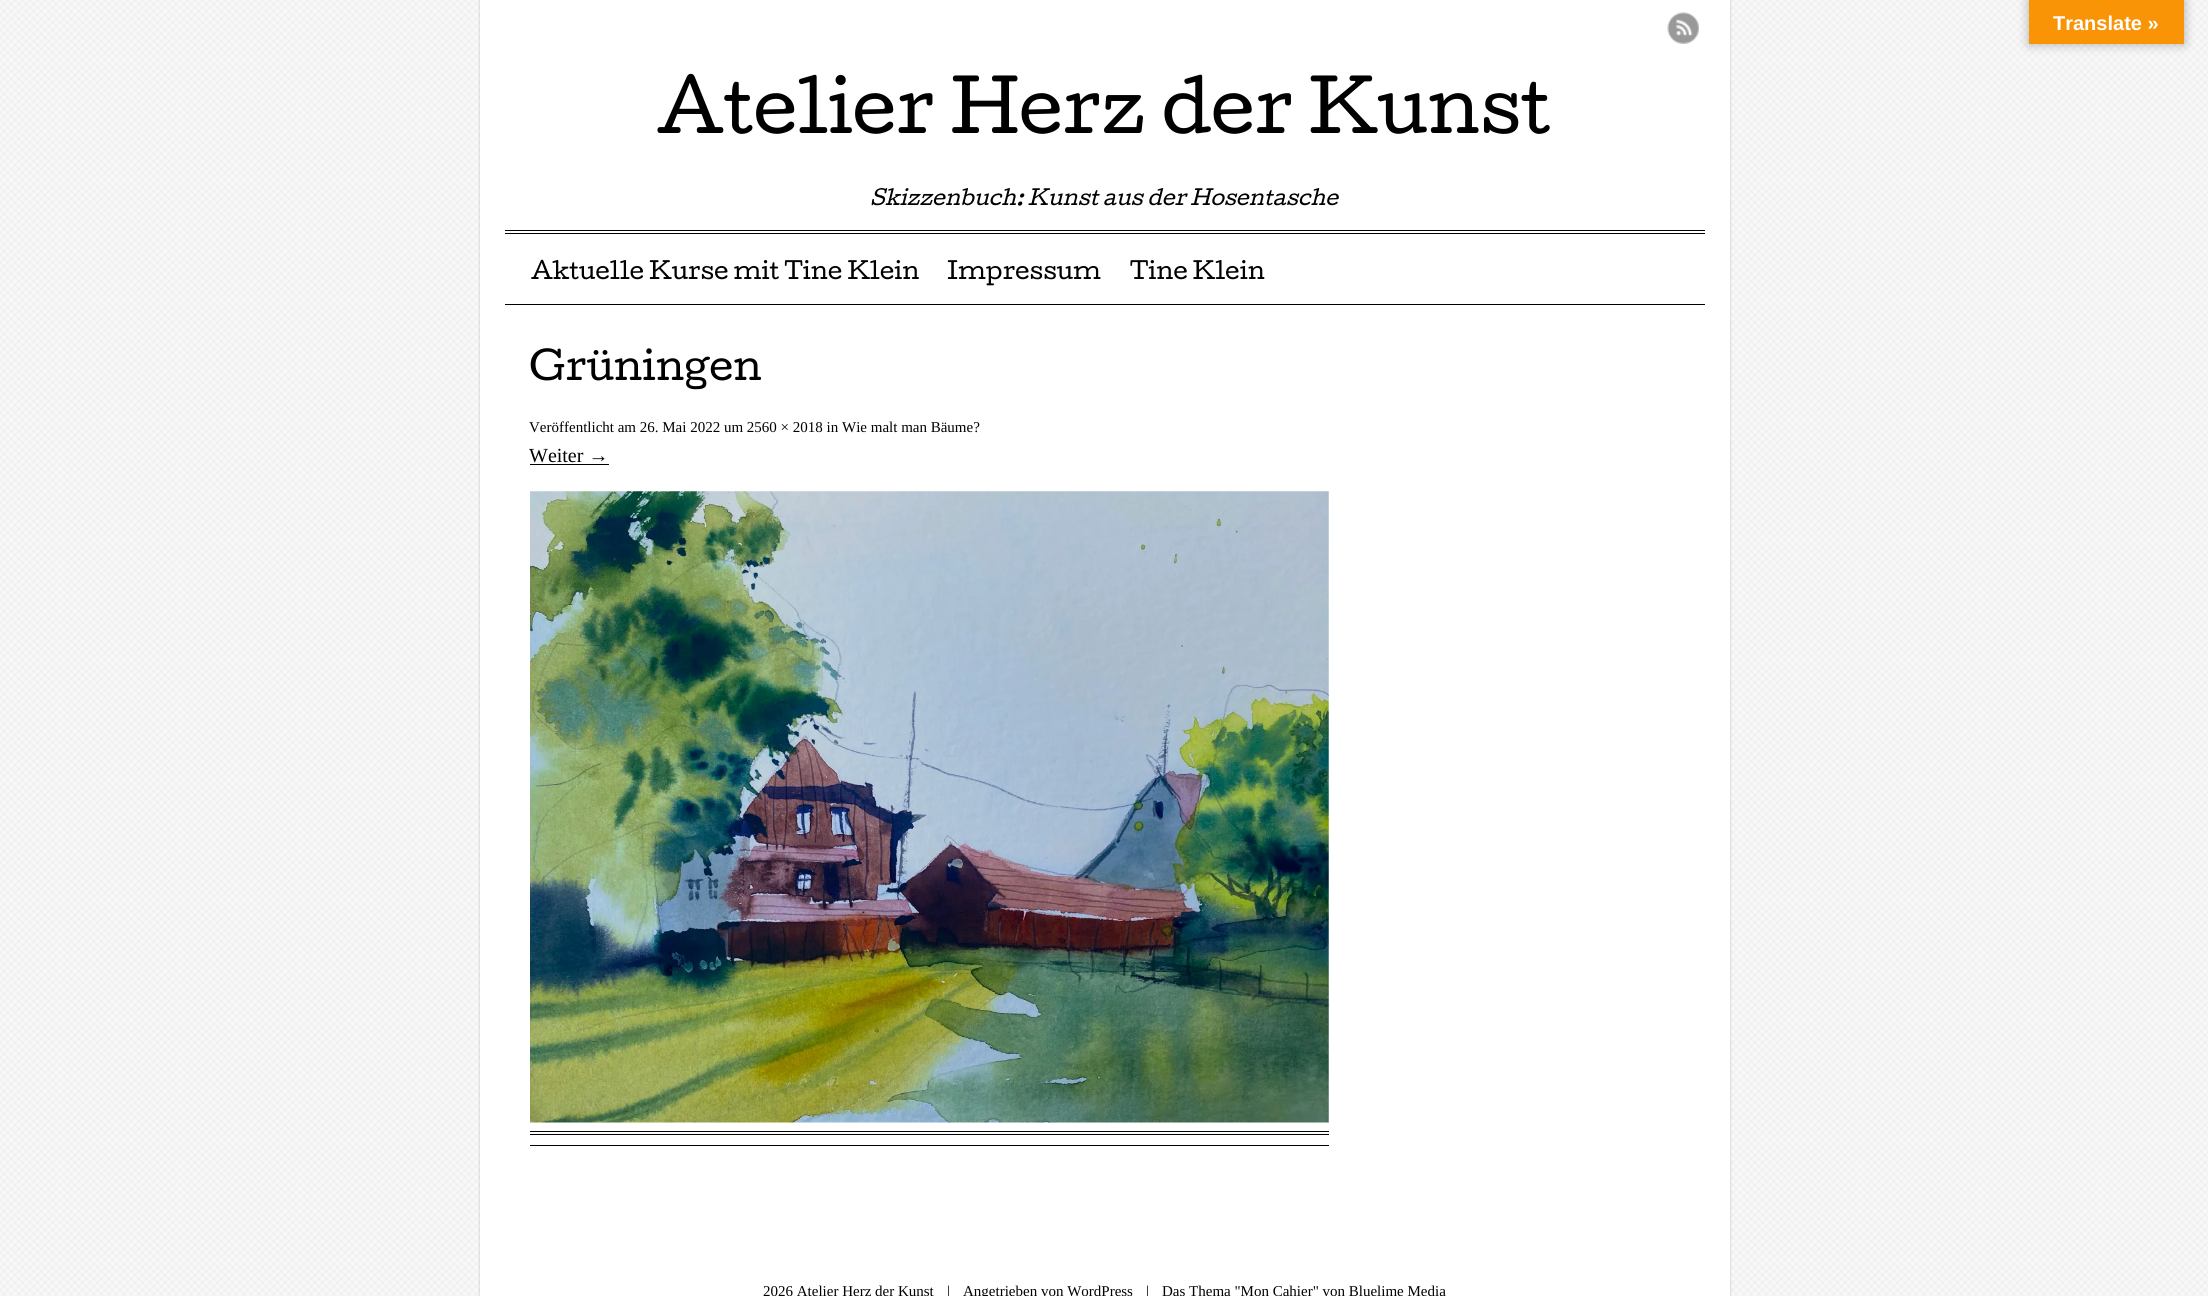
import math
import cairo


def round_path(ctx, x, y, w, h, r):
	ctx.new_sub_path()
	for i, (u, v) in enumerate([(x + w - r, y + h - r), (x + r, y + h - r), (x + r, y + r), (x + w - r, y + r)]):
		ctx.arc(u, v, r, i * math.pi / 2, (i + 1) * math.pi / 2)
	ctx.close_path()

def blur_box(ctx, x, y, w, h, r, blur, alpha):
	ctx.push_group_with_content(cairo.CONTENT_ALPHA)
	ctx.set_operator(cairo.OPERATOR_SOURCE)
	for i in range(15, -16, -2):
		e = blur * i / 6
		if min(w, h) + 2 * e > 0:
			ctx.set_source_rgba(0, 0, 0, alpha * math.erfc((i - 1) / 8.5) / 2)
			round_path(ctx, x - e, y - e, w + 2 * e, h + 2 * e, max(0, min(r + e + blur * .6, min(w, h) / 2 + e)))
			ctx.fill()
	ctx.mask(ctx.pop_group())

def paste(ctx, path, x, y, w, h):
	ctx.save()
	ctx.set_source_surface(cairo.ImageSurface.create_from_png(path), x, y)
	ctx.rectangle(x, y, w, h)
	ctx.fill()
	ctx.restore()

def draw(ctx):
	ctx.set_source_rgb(1, 1, 1)
	ctx.paint()
	paste(ctx, 'media/1.png', 0, 0, 2208, 1296)
	ctx.set_source_rgb(0, 0, 0)
	blur_box(ctx, 2029, 0, 155, 44, 0, 5.5, 0.3)
	ctx.set_source_rgb(0.973, 0.58, 0.024)
	ctx.rectangle(2029, 0, 155, 44)
	ctx.fill()
	ctx.select_font_face('Liberation Sans', cairo.FONT_SLANT_NORMAL, cairo.FONT_WEIGHT_BOLD)
	ctx.set_font_size(20)
	ctx.set_source_rgb(1, 1, 1)
	ctx.move_to(2053, 30)
	ctx.show_text('Translate »')
	ctx.set_source_rgb(0, 0, 0)
	blur_box(ctx, 479, 0, 1252, 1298, 0, 0.5, 0.1)
	ctx.set_source_rgb(1, 1, 1)
	ctx.rectangle(480, 0, 1250, 1296)
	ctx.fill()
	ctx.set_source_rgb(0, 0, 0)
	ctx.rectangle(505, 304, 1200, 1)
	ctx.fill()
	paste(ctx, 'media/2.png', 1667, 12, 32, 32)
	ctx.rectangle(505, 230, 1200, 1)
	ctx.fill()
	ctx.rectangle(505, 233, 1200, 1)
	ctx.fill()
	ctx.select_font_face('Cutive')
	ctx.set_font_size(68.75)
	ctx.move_to(657, 133)
	ctx.show_text('Atelier Herz der Kunst')
	ctx.select_font_face('Cutive', cairo.FONT_SLANT_ITALIC)
	ctx.set_font_size(20)
	ctx.move_to(870, 205)
	ctx.show_text('Skizzenbuch: Kunst aus der Hosentasche')
	ctx.select_font_face('Cutive')
	ctx.set_font_size(22.5)
	for x, y, s in [
		(531, 279, 'Aktuelle Kurse mit Tine Klein'),
		(947, 279, 'Impressum'),
		(1130, 279, 'Tine Klein'),
	]:
		ctx.move_to(x, y)
		ctx.show_text(s)
	ctx.set_font_size(37.5)
	ctx.move_to(529, 380)
	ctx.show_text('Grüningen')
	ctx.select_font_face('Liberation Serif')
	ctx.set_font_size(15)
	ctx.move_to(529, 432)
	ctx.show_text('Veröffentlicht am 26. Mai 2022 um 2560 × 2018 in Wie malt man Bäume?')
	ctx.set_font_size(20)
	ctx.move_to(529, 462)
	ctx.show_text('Weiter →')
	ctx.rectangle(530, 464, 79, 1)
	ctx.fill()
	paste(ctx, 'media/3.png', 530, 491, 799, 632)
	ctx.rectangle(530, 1131, 799, 1)
	ctx.rectangle(530, 1134, 799, 1)
	ctx.rectangle(530, 1145, 799, 1)
	ctx.fill()
	ctx.set_font_size(15)
	for x, y, s in [
		(763, 1296, '2026 Atelier Herz der Kunst'),
		(947, 1296, '|'),
		(963, 1296, 'Angetrieben von WordPress'),
		(1146, 1296, '|'),
		(1162, 1296, 'Das Thema "Mon Cahier" von Bluelime Media'),
	]:
		ctx.move_to(x, y)
		ctx.show_text(s)


surface = cairo.ImageSurface(cairo.FORMAT_RGB24, 2208, 1296)
ctx = cairo.Context(surface)
options = cairo.FontOptions()
options.set_hint_metrics(cairo.HINT_METRICS_OFF)
options.set_hint_style(cairo.HINT_STYLE_NONE)
ctx.set_font_options(options)
ctx.set_miter_limit(4)
draw(ctx)
surface.write_to_png('image.png')
